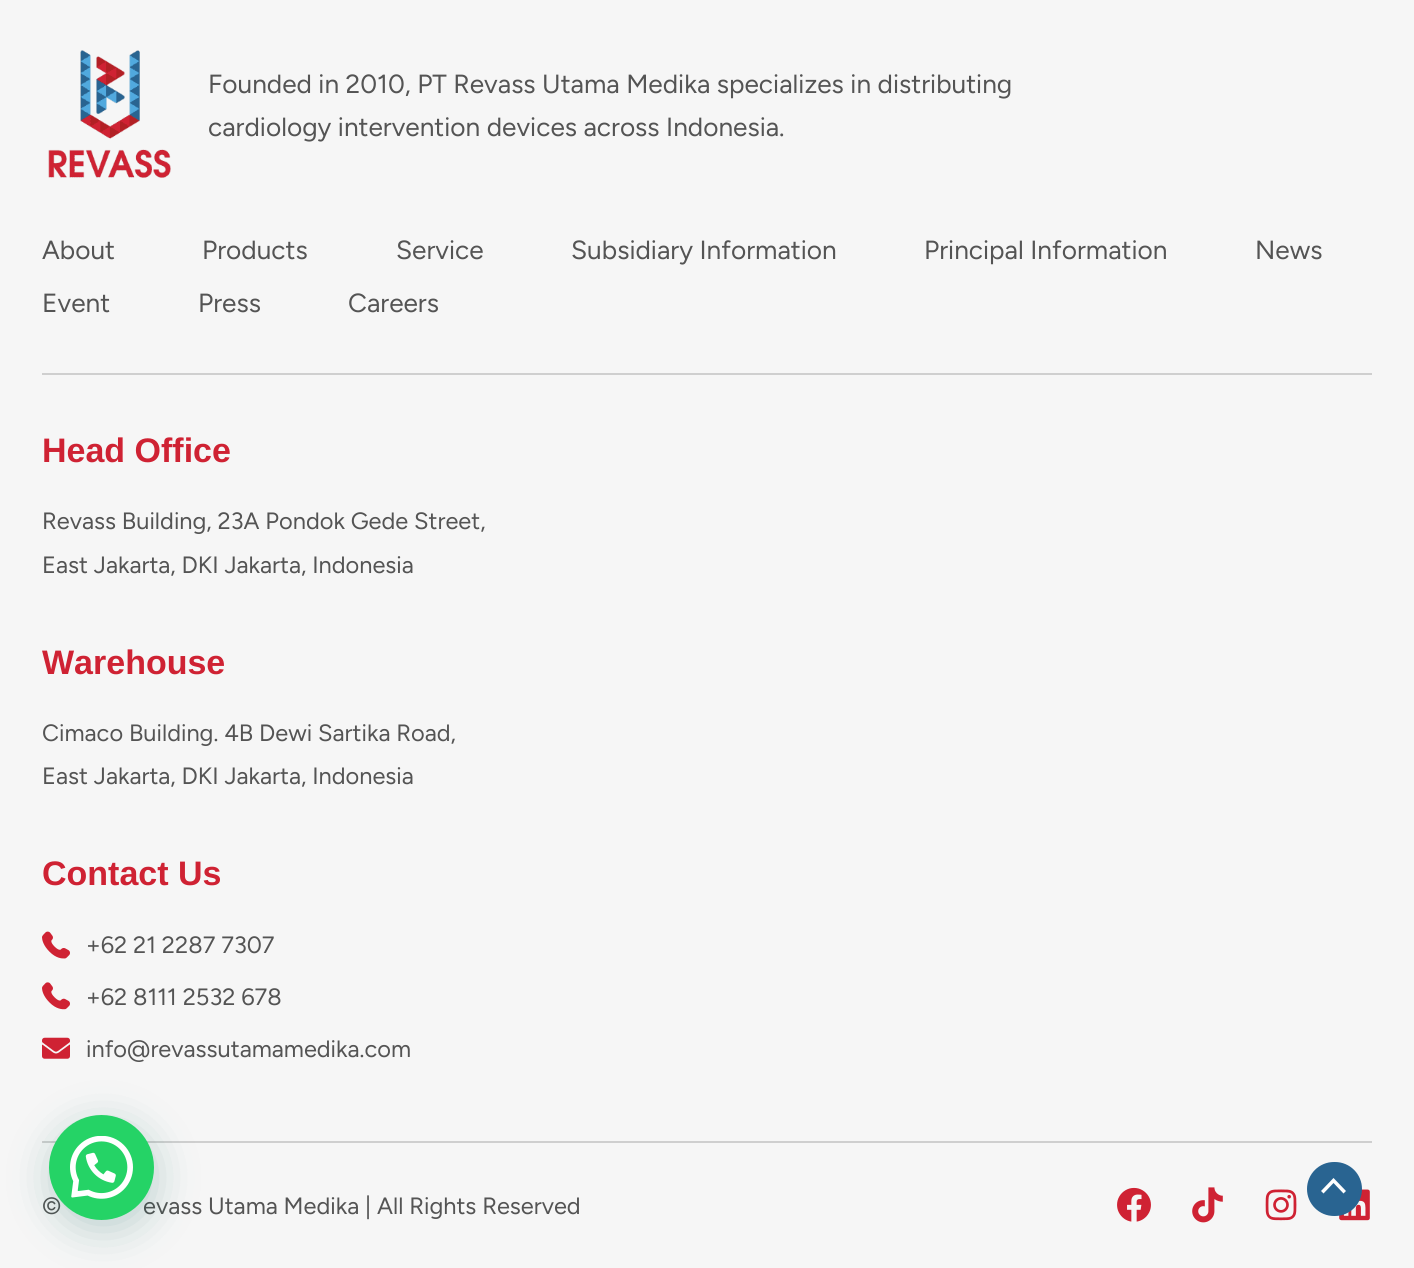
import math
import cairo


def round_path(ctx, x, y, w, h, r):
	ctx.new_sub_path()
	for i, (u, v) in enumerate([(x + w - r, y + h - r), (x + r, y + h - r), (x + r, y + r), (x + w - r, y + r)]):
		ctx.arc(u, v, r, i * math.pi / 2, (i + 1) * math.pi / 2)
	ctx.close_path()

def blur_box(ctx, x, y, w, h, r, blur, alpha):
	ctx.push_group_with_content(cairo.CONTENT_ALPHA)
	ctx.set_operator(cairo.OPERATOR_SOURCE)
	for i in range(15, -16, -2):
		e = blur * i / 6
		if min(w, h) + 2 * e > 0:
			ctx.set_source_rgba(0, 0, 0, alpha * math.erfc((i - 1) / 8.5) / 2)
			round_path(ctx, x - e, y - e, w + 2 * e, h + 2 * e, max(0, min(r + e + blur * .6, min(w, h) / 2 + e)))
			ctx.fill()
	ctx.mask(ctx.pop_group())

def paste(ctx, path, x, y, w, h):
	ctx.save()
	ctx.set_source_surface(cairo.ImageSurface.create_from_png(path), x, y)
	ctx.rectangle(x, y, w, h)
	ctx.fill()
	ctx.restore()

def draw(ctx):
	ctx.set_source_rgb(0.961, 0.961, 0.961)
	ctx.paint()
	paste(ctx, 'media/1.png', 48, 50, 123, 128)
	ctx.select_font_face('Figtree')
	ctx.set_font_size(26.25)
	ctx.set_source_rgb(0.329, 0.329, 0.329)
	for x, y, s in [
		(208, 93, 'Founded in 2010, PT Revass Utama Medika specializes in distributing'),
		(208, 136, 'cardiology intervention devices across Indonesia.'),
		(42, 259, 'About'),
		(202, 259, 'Products'),
		(396, 259, 'Service'),
		(571, 259, 'Subsidiary Information'),
		(924, 259, 'Principal Information'),
		(1255, 259, 'News'),
		(42, 312, 'Event'),
		(198, 312, 'Press'),
		(348, 312, 'Careers'),
	]:
		ctx.move_to(x, y)
		ctx.show_text(s)
	ctx.set_source_rgb(0.812, 0.812, 0.812)
	ctx.rectangle(42, 373, 1330, 2)
	ctx.fill()
	ctx.select_font_face('Liberation Sans', cairo.FONT_SLANT_NORMAL, cairo.FONT_WEIGHT_BOLD)
	ctx.set_font_size(34)
	ctx.set_source_rgb(0.812, 0.133, 0.2)
	ctx.move_to(42, 462)
	ctx.show_text('Head Office')
	ctx.select_font_face('Figtree')
	ctx.set_font_size(23.6)
	ctx.set_source_rgb(0.329, 0.329, 0.329)
	ctx.move_to(42, 529)
	ctx.show_text('Revass Building, 23A Pondok Gede Street,')
	ctx.move_to(42, 573)
	ctx.show_text('East Jakarta, DKI Jakarta, Indonesia')
	ctx.select_font_face('Liberation Sans', cairo.FONT_SLANT_NORMAL, cairo.FONT_WEIGHT_BOLD)
	ctx.set_font_size(34)
	ctx.set_source_rgb(0.812, 0.133, 0.2)
	ctx.move_to(42, 674)
	ctx.show_text('Warehouse')
	ctx.select_font_face('Figtree')
	ctx.set_font_size(23.6)
	ctx.set_source_rgb(0.329, 0.329, 0.329)
	ctx.move_to(42, 741)
	ctx.show_text('Cimaco Building. 4B Dewi Sartika Road,')
	ctx.move_to(42, 784)
	ctx.show_text('East Jakarta, DKI Jakarta, Indonesia')
	ctx.select_font_face('Liberation Sans', cairo.FONT_SLANT_NORMAL, cairo.FONT_WEIGHT_BOLD)
	ctx.set_font_size(34)
	ctx.set_source_rgb(0.812, 0.133, 0.2)
	ctx.move_to(42, 885)
	ctx.show_text('Contact Us')
	paste(ctx, 'media/2.png', 42, 931, 28, 28)
	ctx.select_font_face('Figtree')
	ctx.set_font_size(23.6)
	ctx.set_source_rgb(0.329, 0.329, 0.329)
	ctx.move_to(86, 953)
	ctx.show_text('+62 21 2287 7307')
	paste(ctx, 'media/3.png', 42, 982, 28, 28)
	ctx.move_to(86, 1005)
	ctx.show_text('+62 8111 2532 678')
	paste(ctx, 'media/4.png', 42, 1037, 28, 22)
	ctx.move_to(86, 1057)
	ctx.show_text('info@revassutamamedika.com')
	ctx.set_source_rgb(0.812, 0.812, 0.812)
	ctx.rectangle(42, 1141, 1330, 2)
	ctx.fill()
	ctx.set_source_rgb(0.329, 0.329, 0.329)
	ctx.move_to(42, 1214)
	ctx.show_text('©')
	ctx.move_to(143, 1214)
	ctx.show_text('evass Utama Medika | All Rights Reserved')
	paste(ctx, 'media/5.png', 1117, 1187, 34, 35)
	paste(ctx, 'media/6.png', 1192, 1187, 31, 36)
	paste(ctx, 'media/7.png', 1265, 1189, 32, 32)
	paste(ctx, 'media/8.png', 1339, 1189, 31, 32)
	ctx.set_source_rgb(0.027, 0.369, 0.329)
	blur_box(ctx, 51, 1125, 105, 105, 52.5, 21, 0.24)
	ctx.set_source_rgb(0.145, 0.827, 0.4)
	ctx.arc(101.5, 1167.5, 52.5, 0, 2 * math.pi)
	ctx.fill()
	paste(ctx, 'media/9.png', 70, 1136, 63, 63)
	ctx.set_source_rgb(0.161, 0.392, 0.569)
	round_path(ctx, 1307, 1162, 55, 54, 27)
	ctx.fill()
	ctx.set_source_rgb(1, 1, 1)
	ctx.new_path()
	ctx.move_to(1346, 1191)
	ctx.line_to(1333.5, 1178)
	ctx.line_to(1321, 1191)
	ctx.line_to(1323.5, 1193.5)
	ctx.line_to(1333.5, 1183)
	ctx.line_to(1343.5, 1193.5)
	ctx.close_path()
	ctx.fill()


surface = cairo.ImageSurface(cairo.FORMAT_RGB24, 1414, 1268)
ctx = cairo.Context(surface)
options = cairo.FontOptions()
options.set_hint_metrics(cairo.HINT_METRICS_OFF)
options.set_hint_style(cairo.HINT_STYLE_NONE)
ctx.set_font_options(options)
ctx.set_miter_limit(4)
draw(ctx)
surface.write_to_png('image.png')
